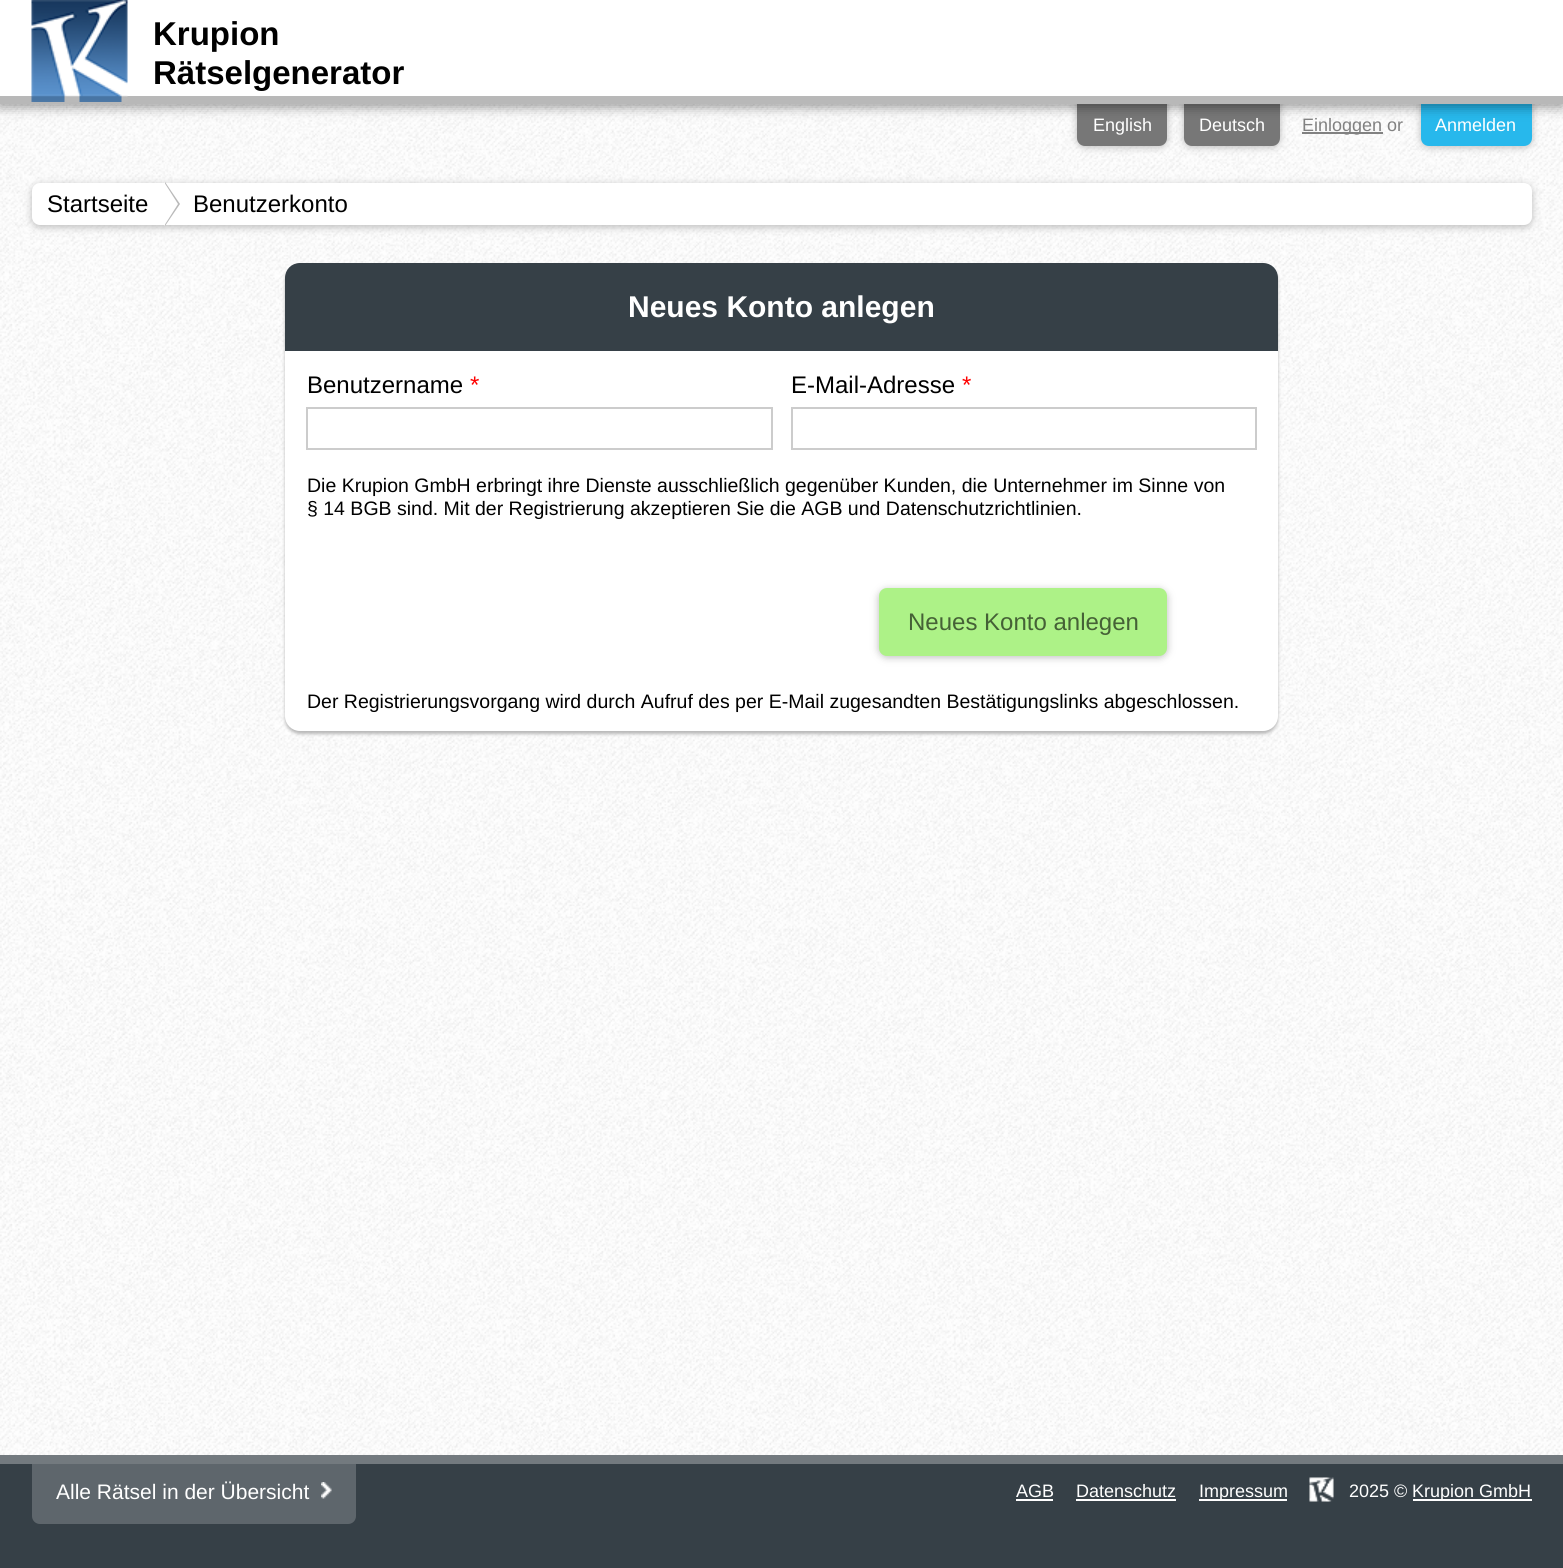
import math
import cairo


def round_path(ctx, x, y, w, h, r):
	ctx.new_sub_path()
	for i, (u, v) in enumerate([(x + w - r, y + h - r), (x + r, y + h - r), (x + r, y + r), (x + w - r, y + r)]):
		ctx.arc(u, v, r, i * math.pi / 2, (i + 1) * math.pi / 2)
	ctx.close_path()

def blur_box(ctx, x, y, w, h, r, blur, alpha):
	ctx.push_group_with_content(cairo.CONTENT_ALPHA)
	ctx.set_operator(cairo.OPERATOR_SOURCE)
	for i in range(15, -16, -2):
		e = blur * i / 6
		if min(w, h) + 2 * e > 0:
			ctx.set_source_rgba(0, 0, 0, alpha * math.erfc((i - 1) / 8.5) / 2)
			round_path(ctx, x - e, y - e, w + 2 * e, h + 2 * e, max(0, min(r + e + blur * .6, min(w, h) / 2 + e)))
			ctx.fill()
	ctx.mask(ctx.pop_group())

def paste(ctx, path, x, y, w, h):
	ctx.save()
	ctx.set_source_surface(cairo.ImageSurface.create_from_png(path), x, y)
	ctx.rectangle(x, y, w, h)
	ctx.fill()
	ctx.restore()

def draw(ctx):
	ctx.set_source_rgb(1, 1, 1)
	ctx.paint()
	paste(ctx, 'media/1.png', 0, 104, 1563, 1351)
	ctx.set_source_rgb(0.725, 0.725, 0.725)
	blur_box(ctx, 1077, 98, 90, 49, 8, 4, 1)
	ctx.set_source_rgb(0.467, 0.467, 0.467)
	ctx.new_path()
	ctx.move_to(1077, 96)
	ctx.line_to(1167, 96)
	ctx.line_to(1167, 138)
	ctx.curve_to(1167, 142.5, 1163.5, 146, 1159, 146)
	ctx.line_to(1085, 146)
	ctx.curve_to(1080.5, 146, 1077, 142.5, 1077, 138)
	ctx.close_path()
	ctx.fill()
	ctx.set_source_rgb(0.725, 0.725, 0.725)
	blur_box(ctx, 1184, 98, 96, 49, 8, 4, 1)
	ctx.set_source_rgb(0.467, 0.467, 0.467)
	ctx.new_path()
	ctx.move_to(1184, 96)
	ctx.line_to(1280, 96)
	ctx.line_to(1280, 138)
	ctx.curve_to(1280, 142.5, 1276.5, 146, 1272, 146)
	ctx.line_to(1192, 146)
	ctx.curve_to(1187.5, 146, 1184, 142.5, 1184, 138)
	ctx.close_path()
	ctx.fill()
	ctx.set_source_rgb(0.725, 0.725, 0.725)
	blur_box(ctx, 1421, 98, 111, 49, 8, 4, 1)
	ctx.set_source_rgb(0.153, 0.722, 0.922)
	ctx.new_path()
	ctx.move_to(1421, 96)
	ctx.line_to(1532, 96)
	ctx.line_to(1532, 138)
	ctx.curve_to(1532, 142.5, 1528.5, 146, 1524, 146)
	ctx.line_to(1429, 146)
	ctx.curve_to(1424.5, 146, 1421, 142.5, 1421, 138)
	ctx.close_path()
	ctx.fill()
	ctx.set_source_rgb(0, 0, 0)
	blur_box(ctx, 0, 3, 1563, 104, 0, 6, 0.4)
	ctx.set_source_rgb(1, 1, 1)
	ctx.rectangle(0, 0, 1563, 96)
	ctx.fill()
	ctx.set_source_rgb(0.722, 0.722, 0.722)
	ctx.rectangle(0, 96, 1563, 8)
	ctx.fill()
	paste(ctx, 'media/2.png', 31, 0, 97, 102)
	ctx.select_font_face('Liberation Sans', cairo.FONT_SLANT_NORMAL, cairo.FONT_WEIGHT_BOLD)
	ctx.set_font_size(33)
	ctx.set_source_rgb(0, 0, 0)
	ctx.move_to(153, 45)
	ctx.show_text('Krupion')
	ctx.move_to(153, 84)
	ctx.show_text('Rätselgenerator')
	ctx.select_font_face('Liberation Sans')
	ctx.set_font_size(18)
	ctx.set_source_rgb(1, 1, 1)
	ctx.move_to(1093, 131)
	ctx.show_text('English')
	ctx.move_to(1199, 131)
	ctx.show_text('Deutsch')
	ctx.set_source_rgb(0.506, 0.506, 0.506)
	ctx.rectangle(1302, 132, 81, 2)
	ctx.fill()
	ctx.move_to(1302, 131)
	ctx.show_text('Einloggen or')
	ctx.set_source_rgb(1, 1, 1)
	ctx.move_to(1435, 131)
	ctx.show_text('Anmelden')
	ctx.set_source_rgb(0.725, 0.725, 0.725)
	blur_box(ctx, 32, 185, 1500, 42, 8, 4, 1)
	ctx.set_source_rgb(1, 1, 1)
	round_path(ctx, 32, 183, 1500, 42, 8)
	ctx.fill()
	ctx.set_source_rgb(0.725, 0.725, 0.725)
	ctx.new_path()
	ctx.move_to(165, 226)
	ctx.line_to(165, 182)
	ctx.line_to(180, 204)
	ctx.close_path()
	ctx.fill()
	ctx.set_source_rgb(1, 1, 1)
	ctx.new_path()
	ctx.move_to(164, 226)
	ctx.line_to(164, 182)
	ctx.line_to(178, 204)
	ctx.close_path()
	ctx.fill()
	ctx.set_font_size(24)
	ctx.set_source_rgb(0, 0, 0)
	ctx.move_to(47, 212)
	ctx.show_text('Startseite')
	ctx.move_to(193, 212)
	ctx.show_text('Benutzerkonto')
	ctx.set_source_rgb(0.725, 0.725, 0.725)
	blur_box(ctx, 285, 266, 993, 468, 15, 1.5, 1)
	ctx.set_source_rgb(1, 1, 1)
	round_path(ctx, 285, 263, 993, 468, 15)
	ctx.fill()
	ctx.set_source_rgb(0.212, 0.251, 0.278)
	ctx.new_path()
	ctx.move_to(300, 263)
	ctx.line_to(1263, 263)
	ctx.curve_to(1271.5, 263, 1278, 269.5, 1278, 278)
	ctx.line_to(1278, 351)
	ctx.line_to(285, 351)
	ctx.line_to(285, 278)
	ctx.curve_to(285, 269.5, 291.5, 263, 300, 263)
	ctx.close_path()
	ctx.fill()
	ctx.select_font_face('Liberation Sans', cairo.FONT_SLANT_NORMAL, cairo.FONT_WEIGHT_BOLD)
	ctx.set_font_size(30)
	ctx.set_source_rgb(1, 1, 1)
	ctx.move_to(628, 317)
	ctx.show_text('Neues Konto anlegen')
	ctx.select_font_face('Liberation Sans')
	ctx.set_font_size(24)
	ctx.set_source_rgb(0, 0, 0)
	ctx.move_to(307, 393)
	ctx.show_text('Benutzername')
	ctx.set_source_rgb(1, 0, 0)
	ctx.move_to(470, 393)
	ctx.show_text('*')
	ctx.rectangle(307, 408, 465, 41)
	ctx.set_source_rgb(0.8, 0.8, 0.8)
	ctx.stroke()
	ctx.set_source_rgb(0, 0, 0)
	ctx.move_to(791, 393)
	ctx.show_text('E-Mail-Adresse')
	ctx.set_source_rgb(1, 0, 0)
	ctx.move_to(962, 393)
	ctx.show_text('*')
	ctx.rectangle(792, 408, 464, 41)
	ctx.set_source_rgb(0.8, 0.8, 0.8)
	ctx.stroke()
	ctx.set_font_size(19.5)
	ctx.set_source_rgb(0, 0, 0)
	ctx.move_to(307, 492)
	ctx.show_text('Die Krupion GmbH erbringt ihre Dienste ausschließlich gegenüber Kunden, die Unternehmer im Sinne von')
	ctx.move_to(307, 515)
	ctx.show_text('§ 14 BGB sind. Mit der Registrierung akzeptieren Sie die AGB und Datenschutzrichtlinien.')
	ctx.set_source_rgb(0.725, 0.725, 0.725)
	blur_box(ctx, 879, 590, 288, 67, 8, 4, 1)
	ctx.set_source_rgb(0.678, 0.949, 0.529)
	round_path(ctx, 879, 588, 288, 68, 8)
	ctx.fill()
	ctx.set_font_size(24)
	ctx.set_source_rgb(0.271, 0.38, 0.212)
	ctx.move_to(908, 630)
	ctx.show_text('Neues Konto anlegen')
	ctx.set_font_size(19.5)
	ctx.set_source_rgb(0, 0, 0)
	ctx.move_to(307, 708)
	ctx.show_text('Der Registrierungsvorgang wird durch Aufruf des per E-Mail zugesandten Bestätigungslinks abgeschlossen.')
	ctx.set_source_rgb(0.212, 0.251, 0.278)
	ctx.rectangle(0, 1464, 1563, 104)
	ctx.fill()
	ctx.set_source_rgb(0.451, 0.478, 0.498)
	ctx.rectangle(0, 1455, 1563, 9)
	ctx.fill()
	ctx.set_source_rgb(0.369, 0.4, 0.424)
	ctx.new_path()
	ctx.move_to(32, 1464)
	ctx.line_to(356, 1464)
	ctx.line_to(356, 1516)
	ctx.curve_to(356, 1520.5, 352.5, 1524, 348, 1524)
	ctx.line_to(40, 1524)
	ctx.curve_to(35.5, 1524, 32, 1520.5, 32, 1516)
	ctx.close_path()
	ctx.fill()
	ctx.set_font_size(21)
	ctx.set_source_rgb(1, 1, 1)
	ctx.move_to(56, 1499)
	ctx.show_text('Alle Rätsel in der Übersicht')
	paste(ctx, 'media/3.png', 321, 1482, 11, 17)
	ctx.set_font_size(18)
	ctx.move_to(1016, 1497)
	ctx.show_text('AGB')
	ctx.rectangle(1016, 1499, 37, 2)
	ctx.fill()
	ctx.move_to(1076, 1497)
	ctx.show_text('Datenschutz')
	ctx.rectangle(1076, 1499, 100, 2)
	ctx.fill()
	ctx.rectangle(1199, 1499, 88, 2)
	ctx.fill()
	ctx.move_to(1199, 1497)
	ctx.show_text('Impressum')
	paste(ctx, 'media/4.png', 1309, 1477, 25, 25)
	ctx.move_to(1349, 1497)
	ctx.show_text('2025 ©')
	ctx.rectangle(1413, 1499, 119, 2)
	ctx.fill()
	ctx.move_to(1412, 1497)
	ctx.show_text('Krupion GmbH')


surface = cairo.ImageSurface(cairo.FORMAT_RGB24, 1563, 1568)
ctx = cairo.Context(surface)
options = cairo.FontOptions()
options.set_hint_metrics(cairo.HINT_METRICS_OFF)
options.set_hint_style(cairo.HINT_STYLE_NONE)
ctx.set_font_options(options)
ctx.set_miter_limit(4)
draw(ctx)
surface.write_to_png('image.png')
